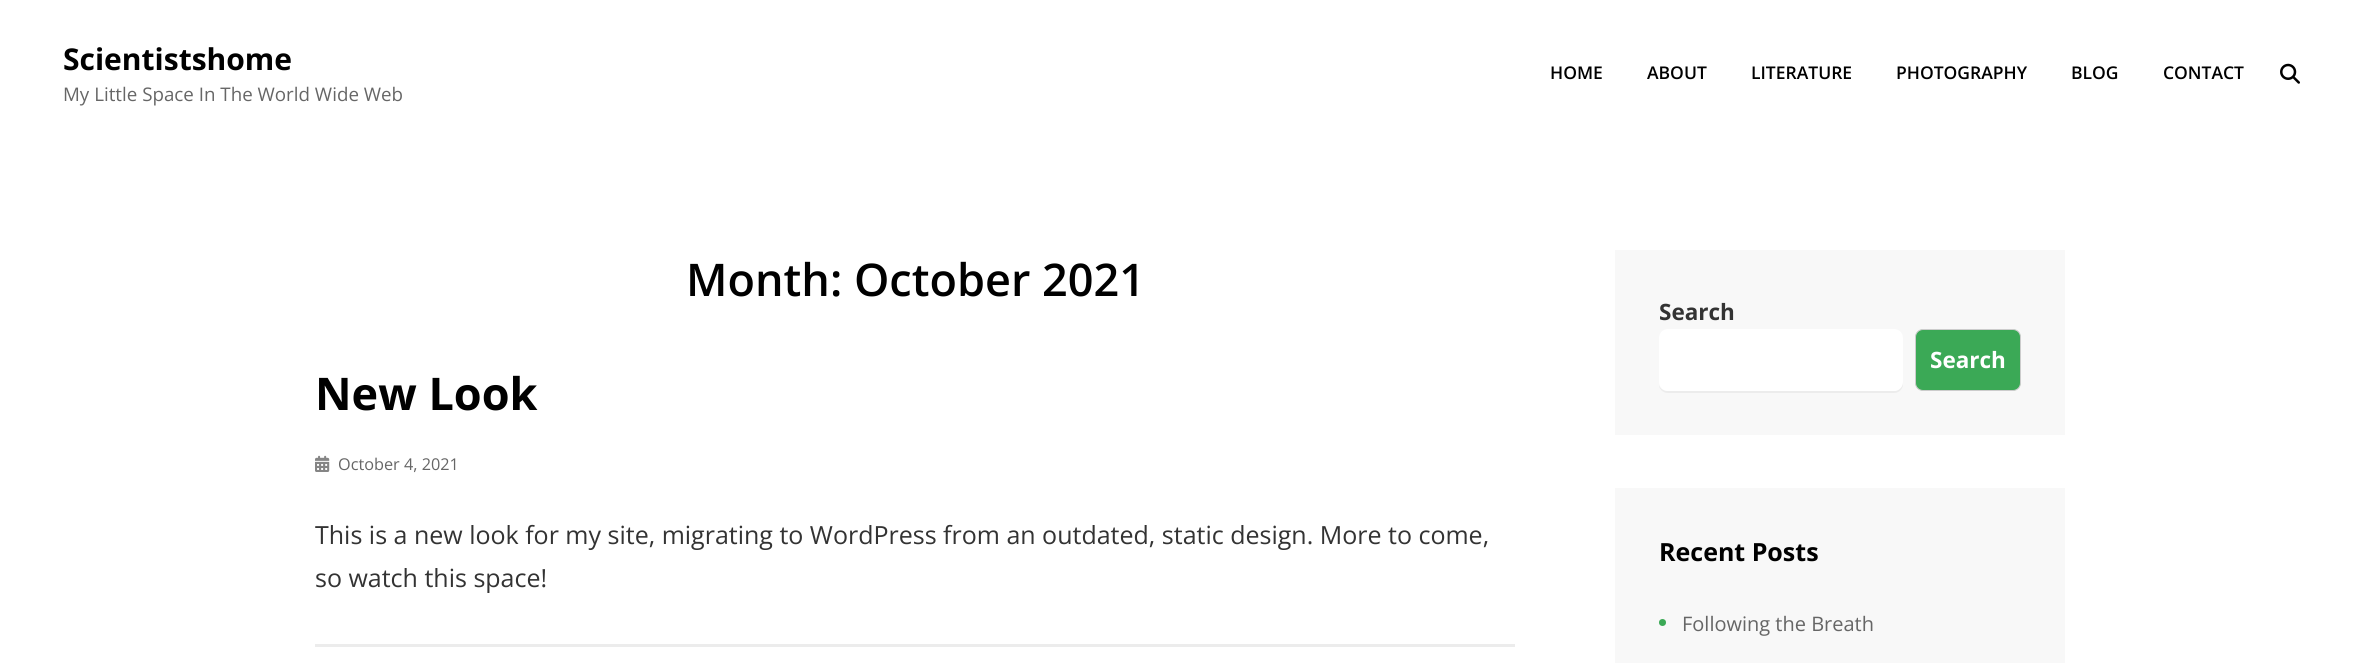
import math
import cairo


def round_path(ctx, x, y, w, h, r):
	ctx.new_sub_path()
	for i, (u, v) in enumerate([(x + w - r, y + h - r), (x + r, y + h - r), (x + r, y + r), (x + w - r, y + r)]):
		ctx.arc(u, v, r, i * math.pi / 2, (i + 1) * math.pi / 2)
	ctx.close_path()

def paste(ctx, path, x, y, w, h):
	ctx.save()
	ctx.set_source_surface(cairo.ImageSurface.create_from_png(path), x, y)
	ctx.rectangle(x, y, w, h)
	ctx.fill()
	ctx.restore()

def draw(ctx):
	ctx.set_source_rgb(1, 1, 1)
	ctx.paint()
	ctx.select_font_face('Open Sans', cairo.FONT_SLANT_NORMAL, cairo.FONT_WEIGHT_BOLD)
	ctx.set_font_size(30)
	ctx.set_source_rgb(0, 0, 0)
	ctx.move_to(63, 70)
	ctx.show_text('Scientistshome')
	ctx.select_font_face('Open Sans')
	ctx.set_font_size(18.75)
	ctx.set_source_rgb(0.4, 0.4, 0.4)
	ctx.move_to(63, 101)
	ctx.show_text('My Little Space In The World Wide Web')
	ctx.select_font_face('Open Sans SemiBold')
	ctx.set_font_size(17.5)
	ctx.set_source_rgb(0, 0, 0)
	for x, y, s in [
		(1550, 79, 'HOME'),
		(1647, 79, 'ABOUT'),
		(1751, 79, 'LITERATURE'),
		(1896, 79, 'PHOTOGRAPHY'),
		(2071, 79, 'BLOG'),
		(2163, 79, 'CONTACT'),
	]:
		ctx.move_to(x, y)
		ctx.show_text(s)
	paste(ctx, 'media/1.png', 2280, 63, 20, 21)
	ctx.set_font_size(45)
	ctx.move_to(686, 296)
	ctx.show_text('Month: October 2021')
	ctx.select_font_face('Open Sans', cairo.FONT_SLANT_NORMAL, cairo.FONT_WEIGHT_BOLD)
	ctx.move_to(315, 410)
	ctx.show_text('New Look')
	paste(ctx, 'media/2.png', 315, 455, 15, 17)
	ctx.select_font_face('Open Sans')
	ctx.set_font_size(16.25)
	ctx.set_source_rgb(0.4, 0.4, 0.4)
	ctx.move_to(338, 470)
	ctx.show_text('October 4, 2021')
	ctx.set_font_size(25)
	ctx.set_source_rgb(0.2, 0.2, 0.2)
	ctx.move_to(315, 544)
	ctx.show_text('This is a new look for my site, migrating to WordPress from an outdated, static design. More to come,')
	ctx.move_to(315, 587)
	ctx.show_text('so watch this space!')
	ctx.set_source_rgb(0.922, 0.922, 0.922)
	ctx.rectangle(315, 644, 1200, 3)
	ctx.fill()
	ctx.set_source_rgb(0.969, 0.969, 0.969)
	ctx.rectangle(1615, 250, 450, 185)
	ctx.fill()
	ctx.select_font_face('Open Sans', cairo.FONT_SLANT_NORMAL, cairo.FONT_WEIGHT_BOLD)
	ctx.set_font_size(22.5)
	ctx.set_source_rgb(0.2, 0.2, 0.2)
	ctx.move_to(1659, 320)
	ctx.show_text('Search')
	ctx.set_source_rgb(0.922, 0.922, 0.922)
	ctx.new_path()
	ctx.move_to(1659, 385)
	ctx.curve_to(1659, 389, 1663, 393, 1668, 393)
	ctx.line_to(1894, 393)
	ctx.curve_to(1899, 393, 1903, 389, 1903, 384)
	ctx.line_to(1903, 339)
	ctx.line_to(1902, 335)
	ctx.line_to(1902, 382)
	ctx.curve_to(1902, 387, 1899, 391, 1894, 391)
	ctx.line_to(1668, 391)
	ctx.curve_to(1663, 391, 1660, 388, 1659, 385)
	ctx.close_path()
	ctx.fill()
	ctx.set_source_rgb(1, 1, 1)
	round_path(ctx, 1659, 329, 244, 62, 9)
	ctx.fill()
	ctx.set_source_rgb(0.231, 0.663, 0.337)
	round_path(ctx, 1915.5, 329.5, 105, 61, 7.5)
	ctx.fill_preserve()
	ctx.set_source_rgb(0.8, 0.8, 0.8)
	ctx.set_line_width(1)
	ctx.stroke()
	ctx.set_source_rgb(1, 1, 1)
	ctx.move_to(1930, 368)
	ctx.show_text('Search')
	ctx.set_source_rgb(0.969, 0.969, 0.969)
	ctx.rectangle(1615, 488, 450, 175)
	ctx.fill()
	ctx.set_font_size(25)
	ctx.set_source_rgb(0, 0, 0)
	ctx.move_to(1659, 561)
	ctx.show_text('Recent Posts')
	ctx.set_source_rgb(0.231, 0.663, 0.337)
	ctx.new_path()
	ctx.arc(1662.5, 622.5, 3.5, 0, 2 * math.pi)
	ctx.fill()
	ctx.select_font_face('Open Sans')
	ctx.set_font_size(20)
	ctx.set_source_rgb(0.4, 0.4, 0.4)
	ctx.move_to(1682, 631)
	ctx.show_text('Following the Breath')


surface = cairo.ImageSurface(cairo.FORMAT_RGB24, 2379, 663)
ctx = cairo.Context(surface)
options = cairo.FontOptions()
options.set_hint_metrics(cairo.HINT_METRICS_OFF)
options.set_hint_style(cairo.HINT_STYLE_NONE)
ctx.set_font_options(options)
ctx.set_miter_limit(4)
draw(ctx)
surface.write_to_png('image.png')
